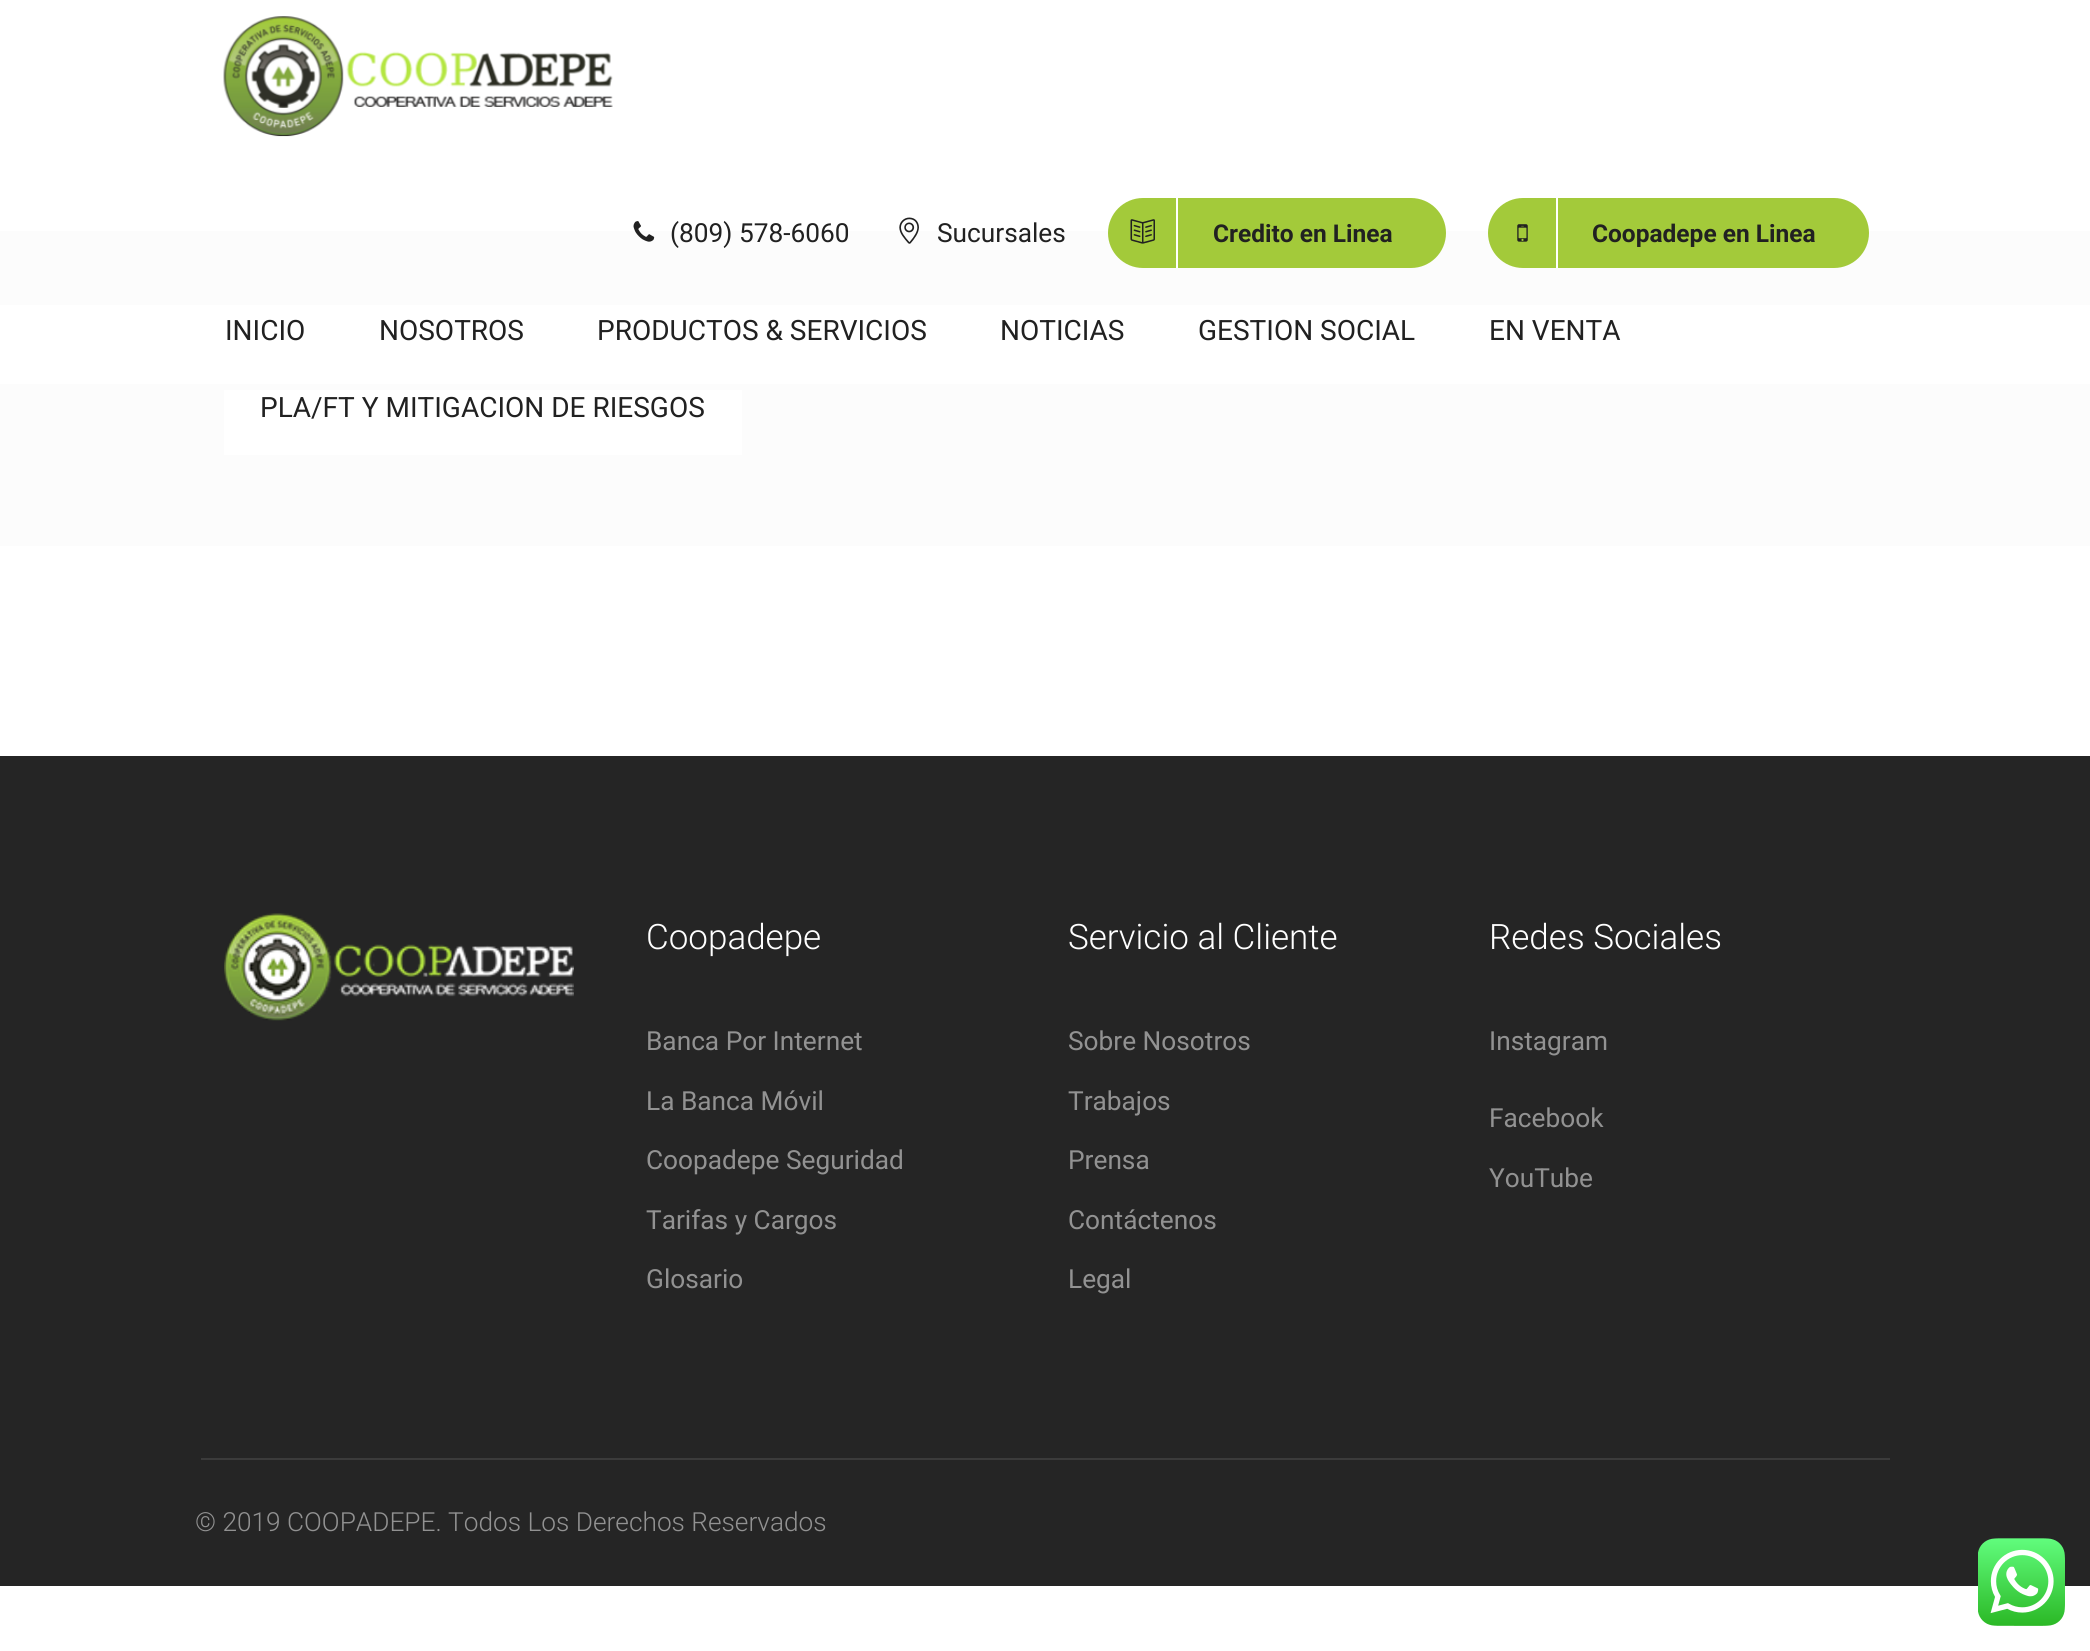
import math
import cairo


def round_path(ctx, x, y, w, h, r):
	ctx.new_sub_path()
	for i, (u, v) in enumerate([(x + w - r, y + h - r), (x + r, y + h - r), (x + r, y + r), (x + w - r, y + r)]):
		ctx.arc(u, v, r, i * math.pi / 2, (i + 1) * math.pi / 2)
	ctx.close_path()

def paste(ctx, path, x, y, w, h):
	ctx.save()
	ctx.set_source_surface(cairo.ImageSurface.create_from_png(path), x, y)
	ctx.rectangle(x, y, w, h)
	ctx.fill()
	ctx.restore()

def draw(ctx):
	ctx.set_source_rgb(1, 1, 1)
	ctx.paint()
	paste(ctx, 'media/1.png', 223, 16, 390, 121)
	ctx.set_source_rgb(0.988, 0.988, 0.988)
	ctx.rectangle(0, 231, 2090, 315)
	ctx.fill()
	paste(ctx, 'media/2.png', 633, 221, 22, 21)
	ctx.select_font_face('Roboto')
	ctx.set_font_size(26.25)
	ctx.set_source_rgb(0.129, 0.129, 0.129)
	ctx.move_to(670, 242)
	ctx.show_text('(809) 578-6060')
	paste(ctx, 'media/3.png', 899, 217, 20, 27)
	ctx.move_to(937, 242)
	ctx.show_text('Sucursales')
	ctx.set_source_rgb(0.639, 0.792, 0.227)
	round_path(ctx, 1108, 198, 338, 70, 35)
	ctx.fill()
	paste(ctx, 'media/4.png', 1130, 219, 25, 25)
	ctx.set_source_rgb(1, 1, 1)
	ctx.rectangle(1176, 198, 2, 70)
	ctx.fill()
	ctx.select_font_face('Roboto', cairo.FONT_SLANT_NORMAL, cairo.FONT_WEIGHT_BOLD)
	ctx.set_font_size(24.5)
	ctx.set_source_rgb(0.129, 0.129, 0.129)
	ctx.move_to(1213, 242)
	ctx.show_text('Credito en Linea')
	ctx.set_source_rgb(0.639, 0.792, 0.227)
	round_path(ctx, 1488, 198, 381, 70, 35)
	ctx.fill()
	paste(ctx, 'media/5.png', 1517, 224, 11, 18)
	ctx.set_source_rgb(1, 1, 1)
	ctx.rectangle(1556, 198, 2, 70)
	ctx.fill()
	ctx.set_source_rgb(0.129, 0.129, 0.129)
	ctx.move_to(1592, 242)
	ctx.show_text('Coopadepe en Linea')
	ctx.set_source_rgb(1, 1, 1)
	ctx.rectangle(0, 305, 2090, 79)
	ctx.fill()
	ctx.select_font_face('Roboto')
	ctx.set_font_size(28)
	ctx.set_source_rgb(0.129, 0.129, 0.129)
	for x, y, s in [
		(225, 340, 'INICIO'),
		(379, 340, 'NOSOTROS'),
		(597, 340, 'PRODUCTOS & SERVICIOS'),
		(1000, 340, 'NOTICIAS'),
		(1198, 340, 'GESTION SOCIAL'),
		(1489, 340, 'EN VENTA'),
	]:
		ctx.move_to(x, y)
		ctx.show_text(s)
	ctx.set_source_rgb(1, 1, 1)
	ctx.rectangle(224, 390, 518, 65)
	ctx.fill()
	ctx.set_source_rgb(0.129, 0.129, 0.129)
	ctx.move_to(260, 417)
	ctx.show_text('PLA/FT Y MITIGACION DE RIESGOS')
	ctx.set_source_rgb(0.145, 0.145, 0.145)
	ctx.rectangle(0, 756, 2090, 830)
	ctx.fill()
	ctx.set_source_rgb(0.231, 0.231, 0.231)
	ctx.rectangle(201, 1458, 1689, 2)
	ctx.fill()
	paste(ctx, 'media/6.png', 224, 913, 350, 108)
	ctx.select_font_face('Roboto Light')
	ctx.set_font_size(35)
	ctx.set_source_rgb(1, 1, 1)
	ctx.move_to(646, 949)
	ctx.show_text('Coopadepe')
	ctx.select_font_face('Roboto')
	ctx.set_font_size(26.25)
	ctx.set_source_rgb(0.573, 0.573, 0.573)
	for x, y, s in [
		(646, 1050, 'Banca Por Internet'),
		(646, 1110, 'La Banca Móvil'),
		(646, 1169, 'Coopadepe Seguridad'),
		(646, 1229, 'Tarifas y Cargos'),
		(646, 1288, 'Glosario'),
	]:
		ctx.move_to(x, y)
		ctx.show_text(s)
	ctx.select_font_face('Roboto Light')
	ctx.set_font_size(35)
	ctx.set_source_rgb(1, 1, 1)
	ctx.move_to(1068, 949)
	ctx.show_text('Servicio al Cliente')
	ctx.select_font_face('Roboto')
	ctx.set_font_size(26.25)
	ctx.set_source_rgb(0.573, 0.573, 0.573)
	for x, y, s in [
		(1068, 1050, 'Sobre Nosotros'),
		(1068, 1110, 'Trabajos'),
		(1068, 1169, 'Prensa'),
		(1068, 1229, 'Contáctenos'),
		(1068, 1288, 'Legal'),
	]:
		ctx.move_to(x, y)
		ctx.show_text(s)
	ctx.select_font_face('Roboto Light')
	ctx.set_font_size(35)
	ctx.set_source_rgb(1, 1, 1)
	ctx.move_to(1489, 949)
	ctx.show_text('Redes Sociales')
	ctx.select_font_face('Roboto')
	ctx.set_font_size(26.25)
	ctx.set_source_rgb(0.573, 0.573, 0.573)
	for x, y, s in [
		(1489, 1050, 'Instagram'),
		(1489, 1127, 'Facebook'),
		(1489, 1187, 'YouTube'),
	]:
		ctx.move_to(x, y)
		ctx.show_text(s)
	ctx.select_font_face('Roboto Light')
	ctx.move_to(195, 1531)
	ctx.show_text('© 2019 COOPADEPE. Todos Los Derechos Reservados')
	paste(ctx, 'media/7.png', 1978, 1538, 87, 88)


surface = cairo.ImageSurface(cairo.FORMAT_RGB24, 2090, 1651)
ctx = cairo.Context(surface)
options = cairo.FontOptions()
options.set_hint_metrics(cairo.HINT_METRICS_OFF)
options.set_hint_style(cairo.HINT_STYLE_NONE)
ctx.set_font_options(options)
ctx.set_miter_limit(4)
draw(ctx)
surface.write_to_png('image.png')
